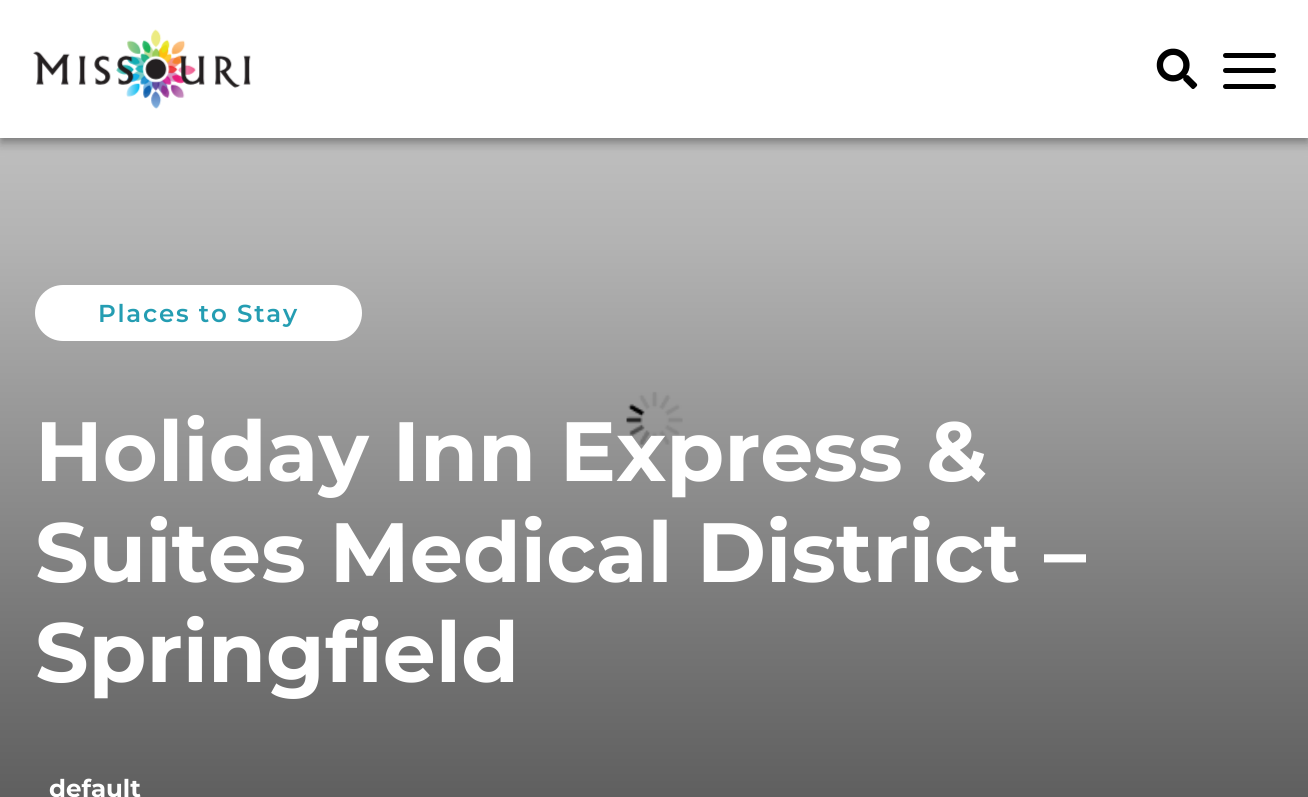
import math
import cairo


def write_spaced(ctx, x, y, s, letter, word):
	ctx.move_to(x, y)
	for ch in s:
		ctx.show_text(ch)
		ctx.rel_move_to(letter + word * (ch == ' '), 0)

def round_path(ctx, x, y, w, h, r):
	ctx.new_sub_path()
	for i, (u, v) in enumerate([(x + w - r, y + h - r), (x + r, y + h - r), (x + r, y + r), (x + w - r, y + r)]):
		ctx.arc(u, v, r, i * math.pi / 2, (i + 1) * math.pi / 2)
	ctx.close_path()

def blur_box(ctx, x, y, w, h, r, blur, alpha):
	ctx.push_group_with_content(cairo.CONTENT_ALPHA)
	ctx.set_operator(cairo.OPERATOR_SOURCE)
	for i in range(15, -16, -2):
		e = blur * i / 6
		if min(w, h) + 2 * e > 0:
			ctx.set_source_rgba(0, 0, 0, alpha * math.erfc((i - 1) / 8.5) / 2)
			round_path(ctx, x - e, y - e, w + 2 * e, h + 2 * e, max(0, min(r + e + blur * .6, min(w, h) / 2 + e)))
			ctx.fill()
	ctx.mask(ctx.pop_group())

def paste(ctx, path, x, y, w, h):
	ctx.save()
	ctx.set_source_surface(cairo.ImageSurface.create_from_png(path), x, y)
	ctx.rectangle(x, y, w, h)
	ctx.fill()
	ctx.restore()

def draw(ctx):
	ctx.set_source_rgb(1, 1, 1)
	ctx.paint()
	paste(ctx, 'media/3.png', 626, 391, 57, 58)
	gradient = cairo.LinearGradient(655, 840, 655, 0)
	gradient.add_color_stop_rgba(0, 0, 0, 0, 0.65)
	gradient.add_color_stop_rgba(0.24, 0, 0, 0, 0.54)
	gradient.add_color_stop_rgba(0.71, 0, 0, 0, 0.3)
	gradient.add_color_stop_rgba(1, 0, 0, 0, 0.19)
	ctx.set_source(gradient)
	ctx.rectangle(0, 138, 1308, 659)
	ctx.fill()
	ctx.set_source_rgb(0, 0, 0)
	blur_box(ctx, 0, 2, 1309, 138, 0, 9, 0.12)
	blur_box(ctx, 0, 7, 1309, 138, 0, 4.5, 0.14)
	blur_box(ctx, 2, 5, 1305, 135, 0, 3.5, 0.2)
	ctx.set_source_rgb(1, 1, 1)
	ctx.rectangle(0, 0, 1308, 138)
	ctx.fill()
	paste(ctx, 'media/1.png', 33, 29, 218, 80)
	paste(ctx, 'media/2.png', 1156, 48, 42, 41)
	ctx.set_source_rgb(0, 0, 0)
	round_path(ctx, 1223, 53, 53, 5, 2.5)
	ctx.fill()
	round_path(ctx, 1223, 68, 53, 5, 2.5)
	ctx.fill()
	round_path(ctx, 1223, 84, 53, 5, 2.5)
	ctx.fill()
	ctx.set_source_rgb(1, 1, 1)
	round_path(ctx, 35, 285, 327, 56, 28)
	ctx.fill()
	ctx.select_font_face('Montserrat SemiBold')
	ctx.set_font_size(24.5)
	ctx.set_source_rgb(0.141, 0.616, 0.698)
	write_spaced(ctx, 98, 322, 'Places to Stay', 1.75, 0)
	ctx.select_font_face('Montserrat', cairo.FONT_SLANT_NORMAL, cairo.FONT_WEIGHT_BOLD)
	ctx.set_font_size(84)
	ctx.set_source_rgb(1, 1, 1)
	for x, y, s in [
		(35, 481, 'Holiday Inn Express &'),
		(35, 582, 'Suites Medical District –'),
		(35, 682, 'Springfield'),
	]:
		ctx.move_to(x, y)
		ctx.show_text(s)
	ctx.set_font_size(24.5)
	ctx.move_to(49, 797)
	ctx.show_text('default')


surface = cairo.ImageSurface(cairo.FORMAT_RGB24, 1308, 797)
ctx = cairo.Context(surface)
options = cairo.FontOptions()
options.set_hint_metrics(cairo.HINT_METRICS_OFF)
options.set_hint_style(cairo.HINT_STYLE_NONE)
ctx.set_font_options(options)
ctx.set_miter_limit(4)
draw(ctx)
surface.write_to_png('image.png')
